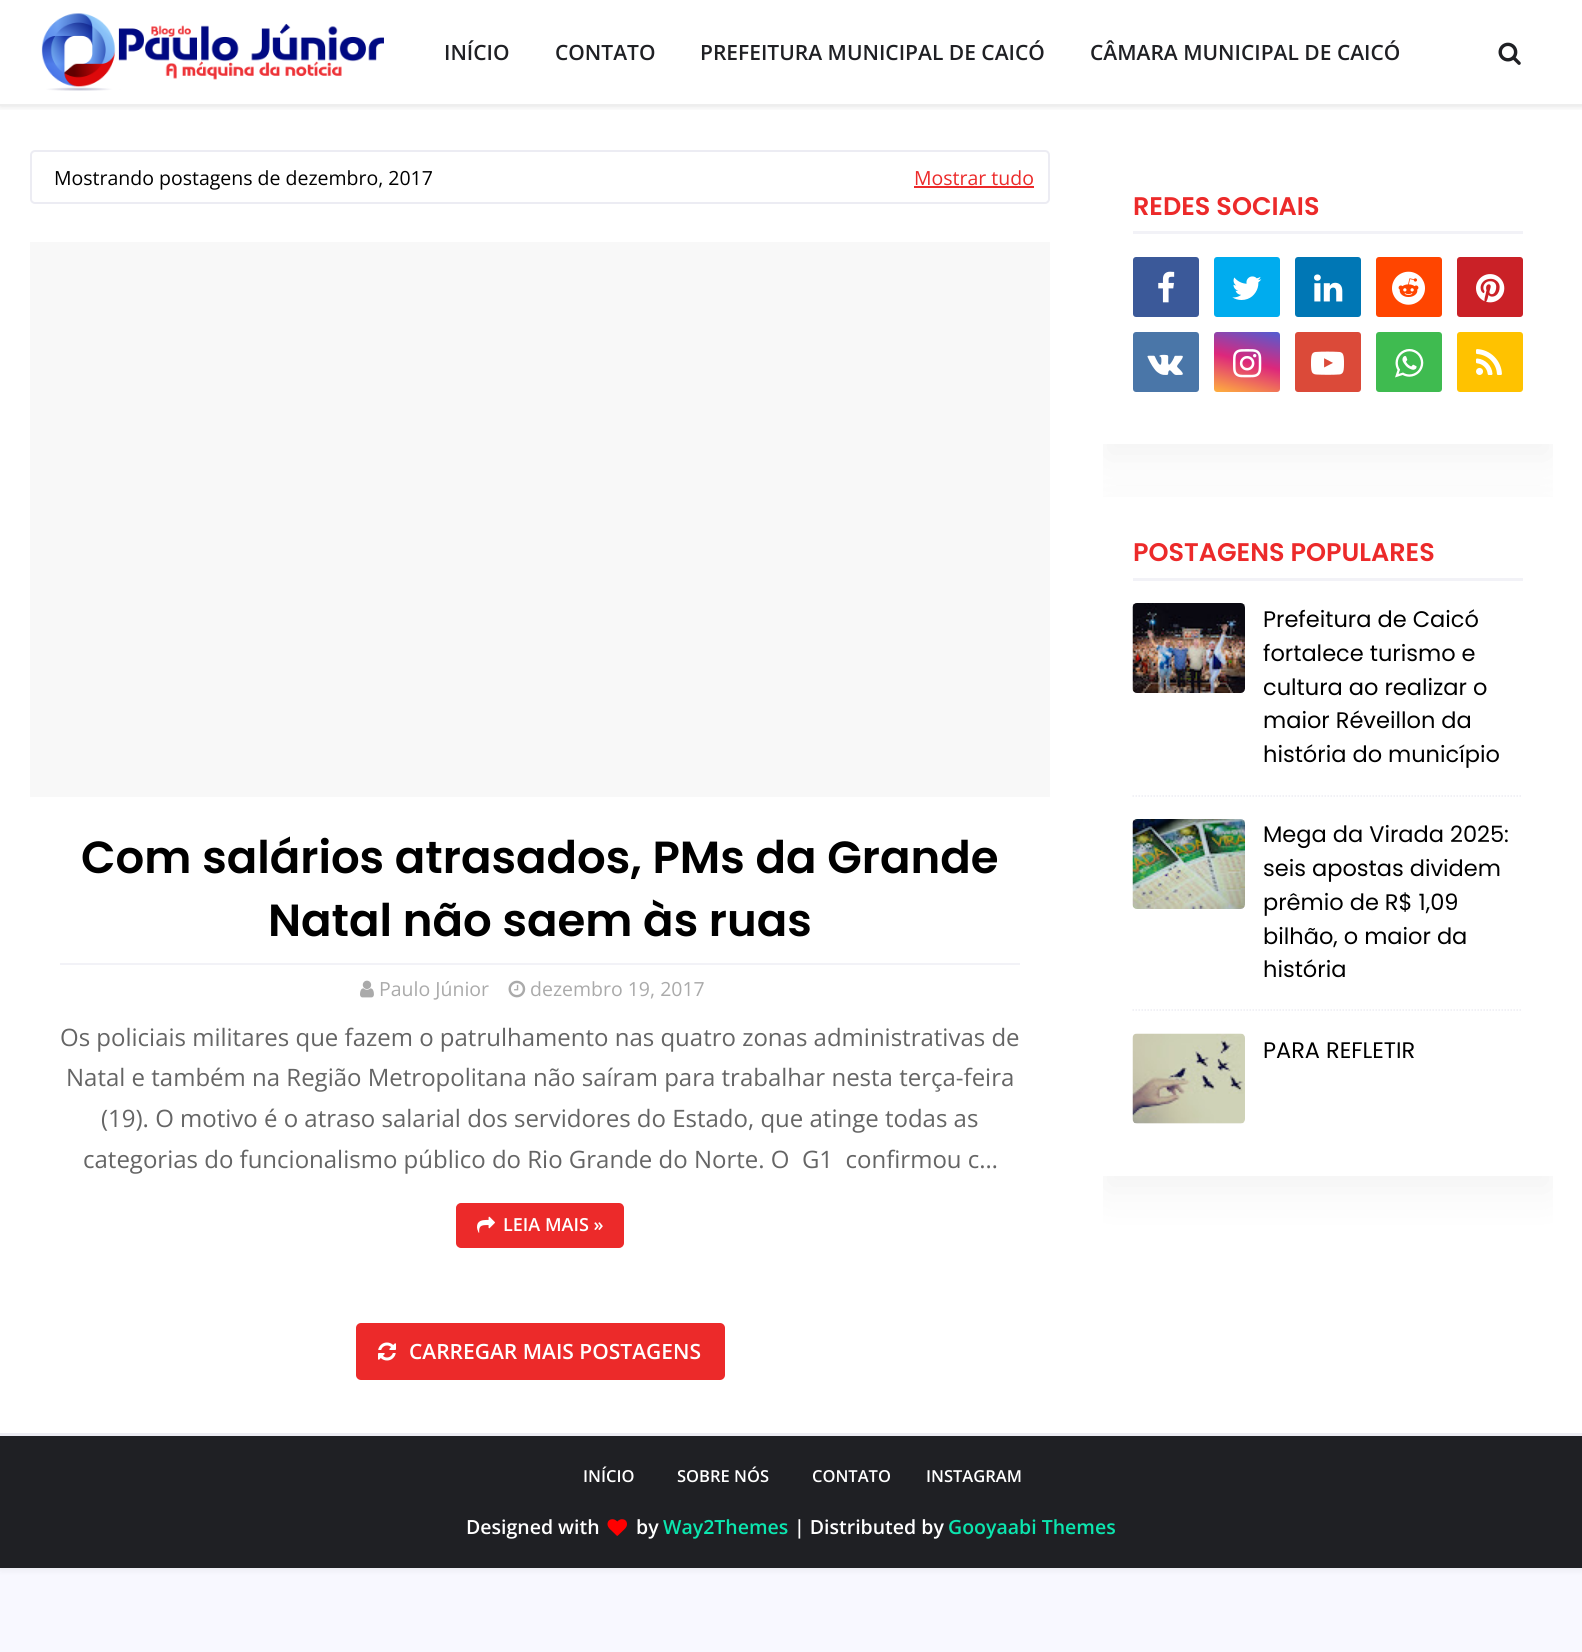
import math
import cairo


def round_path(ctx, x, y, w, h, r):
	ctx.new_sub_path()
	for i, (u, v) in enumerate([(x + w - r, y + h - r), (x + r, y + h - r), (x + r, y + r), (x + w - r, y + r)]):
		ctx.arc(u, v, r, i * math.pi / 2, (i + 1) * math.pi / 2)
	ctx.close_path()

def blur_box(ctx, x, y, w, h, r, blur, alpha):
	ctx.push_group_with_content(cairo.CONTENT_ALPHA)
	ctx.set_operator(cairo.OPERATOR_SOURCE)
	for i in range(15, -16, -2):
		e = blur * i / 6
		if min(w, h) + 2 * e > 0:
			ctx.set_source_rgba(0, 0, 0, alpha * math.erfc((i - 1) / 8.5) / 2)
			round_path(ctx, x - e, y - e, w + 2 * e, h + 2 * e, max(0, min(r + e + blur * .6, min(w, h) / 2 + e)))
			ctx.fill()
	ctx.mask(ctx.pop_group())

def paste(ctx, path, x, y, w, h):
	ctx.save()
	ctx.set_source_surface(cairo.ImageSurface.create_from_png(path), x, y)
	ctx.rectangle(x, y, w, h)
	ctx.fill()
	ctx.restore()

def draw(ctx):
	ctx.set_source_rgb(0.969, 0.969, 1)
	ctx.paint()
	ctx.set_source_rgb(0, 0, 0)
	blur_box(ctx, 0, 0, 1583, 1568, 0, 4, 0.1)
	ctx.set_source_rgb(1, 1, 1)
	ctx.rectangle(0, 0, 1582, 1433)
	ctx.fill()
	ctx.save()
	ctx.rectangle(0, 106, 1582, 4)
	ctx.clip()
	ctx.set_source_rgb(0, 0, 0)
	blur_box(ctx, 0, 2, 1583, 105, 0, 3, 0.1)
	ctx.restore()
	round_path(ctx, 31, 151, 1018, 52, 4)
	ctx.set_source_rgb(0.922, 0.922, 0.953)
	ctx.stroke()
	ctx.save()
	ctx.rectangle(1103, 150, 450, 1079)
	ctx.clip()
	ctx.set_source_rgb(0, 0, 0)
	blur_box(ctx, 1103, 165, 450, 294, 0, 22.5, 0.05)
	ctx.restore()
	ctx.set_source_rgb(0.933, 0.933, 0.933)
	ctx.rectangle(0, 104, 1582, 2)
	ctx.fill()
	paste(ctx, 'media/1.png', 41, 13, 343, 78)
	ctx.select_font_face('Open Sans SemiBold')
	ctx.set_font_size(21)
	ctx.set_source_rgb(0.122, 0.125, 0.141)
	for x, y, s in [
		(444, 60, 'INÍCIO'),
		(555, 60, 'CONTATO'),
		(700, 60, 'PREFEITURA MUNICIPAL DE CAICÓ'),
		(1090, 60, 'CÂMARA MUNICIPAL DE CAICÓ'),
	]:
		ctx.move_to(x, y)
		ctx.show_text(s)
	paste(ctx, 'media/2.png', 1498, 42, 23, 23)
	ctx.select_font_face('Open Sans')
	ctx.set_font_size(19.5)
	ctx.set_source_rgb(0, 0, 0)
	ctx.move_to(54, 185)
	ctx.show_text('Mostrando postagens de dezembro, 2017')
	ctx.set_source_rgb(0.922, 0.165, 0.165)
	ctx.move_to(914, 185)
	ctx.show_text('Mostrar tudo')
	ctx.rectangle(914, 186, 120, 2)
	ctx.fill()
	ctx.set_source_rgb(1, 1, 1)
	ctx.rectangle(1103, 150, 450, 294)
	ctx.fill()
	ctx.save()
	ctx.rectangle(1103, 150, 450, 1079)
	ctx.clip()
	ctx.set_source_rgb(0, 0, 0)
	blur_box(ctx, 1103, 512, 450, 679, 0, 22.5, 0.05)
	ctx.restore()
	ctx.set_source_rgba(0.608, 0.608, 0.608, 0.07)
	ctx.rectangle(30, 242, 1020, 555)
	ctx.fill()
	ctx.select_font_face('Poppins SemiBold')
	ctx.set_font_size(45)
	ctx.set_source_rgb(0, 0, 0)
	ctx.move_to(81, 873)
	ctx.show_text('Com salários atrasados, PMs da Grande')
	ctx.move_to(268, 936)
	ctx.show_text('Natal não saem às ruas')
	ctx.set_source_rgb(0.949, 0.949, 0.965)
	ctx.rectangle(60, 963, 960, 2)
	ctx.fill()
	paste(ctx, 'media/3.png', 360, 980, 14, 18)
	ctx.select_font_face('Open Sans')
	ctx.set_font_size(19.5)
	ctx.set_source_rgb(0.667, 0.667, 0.667)
	ctx.move_to(379, 996)
	ctx.show_text('Paulo Júnior')
	paste(ctx, 'media/4.png', 508, 980, 18, 18)
	ctx.move_to(530, 996)
	ctx.show_text('dezembro 19, 2017')
	ctx.set_font_size(24)
	ctx.set_source_rgb(0.396, 0.396, 0.396)
	for x, y, s in [
		(60, 1046, 'Os policiais militares que fazem o patrulhamento nas quatro zonas administrativas de'),
		(66, 1086, 'Natal e também na Região Metropolitana não saíram para trabalhar nesta terça-feira'),
		(101, 1127, '(19). O motivo é o atraso salarial dos servidores do Estado, que atinge todas as'),
		(83, 1168, 'categorias do funcionalismo público do Rio Grande do Norte. O  G1  confirmou c…'),
	]:
		ctx.move_to(x, y)
		ctx.show_text(s)
	ctx.set_source_rgb(0.922, 0.165, 0.165)
	round_path(ctx, 457, 1204, 166, 43, 4)
	ctx.fill_preserve()
	ctx.stroke()
	paste(ctx, 'media/5.png', 477, 1216, 18, 17)
	ctx.select_font_face('Open Sans SemiBold')
	ctx.set_font_size(18)
	ctx.set_source_rgb(1, 1, 1)
	ctx.move_to(503, 1231)
	ctx.show_text('LEIA MAIS »')
	ctx.set_source_rgb(0.922, 0.165, 0.165)
	round_path(ctx, 356, 1323, 369, 57, 5)
	ctx.fill()
	paste(ctx, 'media/6.png', 378, 1342, 18, 19)
	ctx.set_font_size(21)
	ctx.set_source_rgb(1, 1, 1)
	ctx.move_to(409, 1359)
	ctx.show_text('CARREGAR MAIS POSTAGENS')
	ctx.set_source_rgb(0.949, 0.949, 0.965)
	ctx.rectangle(1133, 231, 390, 3)
	ctx.fill()
	ctx.select_font_face('Poppins SemiBold')
	ctx.set_font_size(25.5)
	ctx.set_source_rgb(0.922, 0.165, 0.165)
	ctx.move_to(1133, 215)
	ctx.show_text('REDES SOCIAIS')
	ctx.set_source_rgb(0.231, 0.349, 0.6)
	round_path(ctx, 1133, 257, 66, 60, 3)
	ctx.fill()
	paste(ctx, 'media/7.png', 1158, 271, 17, 32)
	ctx.set_source_rgb(0, 0.675, 0.933)
	round_path(ctx, 1214, 257, 66, 60, 3)
	ctx.fill()
	paste(ctx, 'media/8.png', 1232, 276, 30, 24)
	ctx.set_source_rgb(0, 0.467, 0.71)
	round_path(ctx, 1295, 257, 66, 60, 3)
	ctx.fill()
	paste(ctx, 'media/9.png', 1314, 274, 29, 28)
	ctx.set_source_rgb(1, 0.271, 0)
	round_path(ctx, 1376, 257, 66, 60, 3)
	ctx.fill()
	paste(ctx, 'media/10.png', 1392, 271, 33, 34)
	ctx.set_source_rgb(0.792, 0.129, 0.153)
	round_path(ctx, 1457, 257, 66, 60, 3)
	ctx.fill()
	paste(ctx, 'media/11.png', 1476, 274, 29, 29)
	ctx.set_source_rgb(0.29, 0.463, 0.659)
	round_path(ctx, 1133, 332, 66, 60, 3)
	ctx.fill()
	paste(ctx, 'media/12.png', 1147, 354, 36, 21)
	gradient = cairo.LinearGradient(1237, 398, 1256, 325)
	gradient.add_color_stop_rgba(0, 1, 0.694, 0.239, 1)
	gradient.add_color_stop_rgba(0.5, 0.867, 0.153, 0.482, 1)
	gradient.add_color_stop_rgba(1, 0.302, 0.369, 0.831, 1)
	ctx.set_source(gradient)
	round_path(ctx, 1214, 332, 66, 60, 3)
	ctx.fill()
	paste(ctx, 'media/13.png', 1233, 349, 29, 29)
	ctx.set_source_rgb(0.859, 0.29, 0.224)
	round_path(ctx, 1295, 332, 66, 60, 3)
	ctx.fill()
	paste(ctx, 'media/14.png', 1311, 351, 33, 24)
	ctx.set_source_rgb(0.247, 0.733, 0.314)
	round_path(ctx, 1376, 332, 66, 60, 3)
	ctx.fill()
	paste(ctx, 'media/15.png', 1395, 349, 29, 29)
	ctx.set_source_rgb(1, 0.761, 0)
	round_path(ctx, 1457, 332, 66, 60, 3)
	ctx.fill()
	paste(ctx, 'media/16.png', 1476, 349, 26, 26)
	ctx.set_source_rgb(1, 1, 1)
	ctx.rectangle(1103, 497, 450, 679)
	ctx.fill()
	ctx.set_source_rgb(0.949, 0.949, 0.965)
	ctx.rectangle(1133, 578, 390, 3)
	ctx.fill()
	ctx.set_source_rgb(0.922, 0.165, 0.165)
	ctx.move_to(1133, 561)
	ctx.show_text('POSTAGENS POPULARES')
	paste(ctx, 'media/17.png', 1132, 603, 113, 90)
	ctx.select_font_face('Poppins')
	ctx.set_font_size(22.5)
	ctx.set_source_rgb(0, 0, 0)
	for x, y, s in [
		(1263, 627, 'Prefeitura de Caicó'),
		(1263, 661, 'fortalece turismo e'),
		(1263, 695, 'cultura ao realizar o'),
		(1263, 728, 'maior Réveillon da'),
		(1263, 762, 'história do município'),
	]:
		ctx.move_to(x, y)
		ctx.show_text(s)
	ctx.new_path()
	ctx.move_to(1132.5, 796)
	ctx.line_to(1522.5, 796)
	ctx.set_source_rgb(0.922, 0.922, 0.953)
	ctx.set_line_width(1.5)
	ctx.set_dash([1.5, 1.5])
	ctx.stroke()
	paste(ctx, 'media/18.png', 1132, 819, 113, 90)
	ctx.set_source_rgb(0, 0, 0)
	for x, y, s in [
		(1263, 842, 'Mega da Virada 2025:'),
		(1263, 876, 'seis apostas dividem'),
		(1263, 910, 'prêmio de R$ 1,09'),
		(1263, 944, 'bilhão, o maior da'),
		(1263, 977, 'história'),
	]:
		ctx.move_to(x, y)
		ctx.show_text(s)
	ctx.new_path()
	ctx.move_to(1132.5, 1010)
	ctx.line_to(1522.5, 1010)
	ctx.set_source_rgb(0.922, 0.922, 0.953)
	ctx.stroke()
	ctx.set_source_rgb(0.973, 0.973, 0.973)
	round_path(ctx, 1133, 1034, 112, 90, 5)
	ctx.fill()
	paste(ctx, 'media/19.png', 1132, 1033, 113, 91)
	ctx.set_source_rgb(0, 0, 0)
	ctx.move_to(1263, 1058)
	ctx.show_text('PARA REFLETIR')
	ctx.set_source_rgb(0.122, 0.125, 0.141)
	ctx.rectangle(0, 1436, 1582, 132)
	ctx.fill()
	ctx.set_source_rgb(0.922, 0.922, 0.953)
	ctx.rectangle(0, 1433, 1582, 3)
	ctx.fill()
	ctx.select_font_face('Open Sans SemiBold')
	ctx.set_font_size(16.5)
	ctx.set_source_rgb(1, 1, 1)
	for x, y, s in [
		(583, 1482, 'INÍCIO'),
		(677, 1482, 'SOBRE NÓS'),
		(812, 1482, 'CONTATO'),
		(926, 1482, 'INSTAGRAM'),
	]:
		ctx.move_to(x, y)
		ctx.show_text(s)
	ctx.set_font_size(19.5)
	ctx.move_to(466, 1534)
	ctx.show_text('Designed with')
	paste(ctx, 'media/20.png', 607, 1519, 20, 17)
	ctx.move_to(636, 1534)
	ctx.show_text('by')
	ctx.set_source_rgb(0.043, 0.902, 0.686)
	ctx.move_to(663, 1534)
	ctx.show_text('Way2Themes')
	ctx.set_source_rgb(1, 1, 1)
	ctx.move_to(794, 1534)
	ctx.show_text('| Distributed by')
	ctx.set_source_rgb(0.043, 0.902, 0.686)
	ctx.move_to(948, 1534)
	ctx.show_text('Gooyaabi Themes')


surface = cairo.ImageSurface(cairo.FORMAT_RGB24, 1582, 1652)
ctx = cairo.Context(surface)
options = cairo.FontOptions()
options.set_hint_metrics(cairo.HINT_METRICS_OFF)
options.set_hint_style(cairo.HINT_STYLE_NONE)
ctx.set_font_options(options)
ctx.set_miter_limit(4)
draw(ctx)
surface.write_to_png('image.png')
